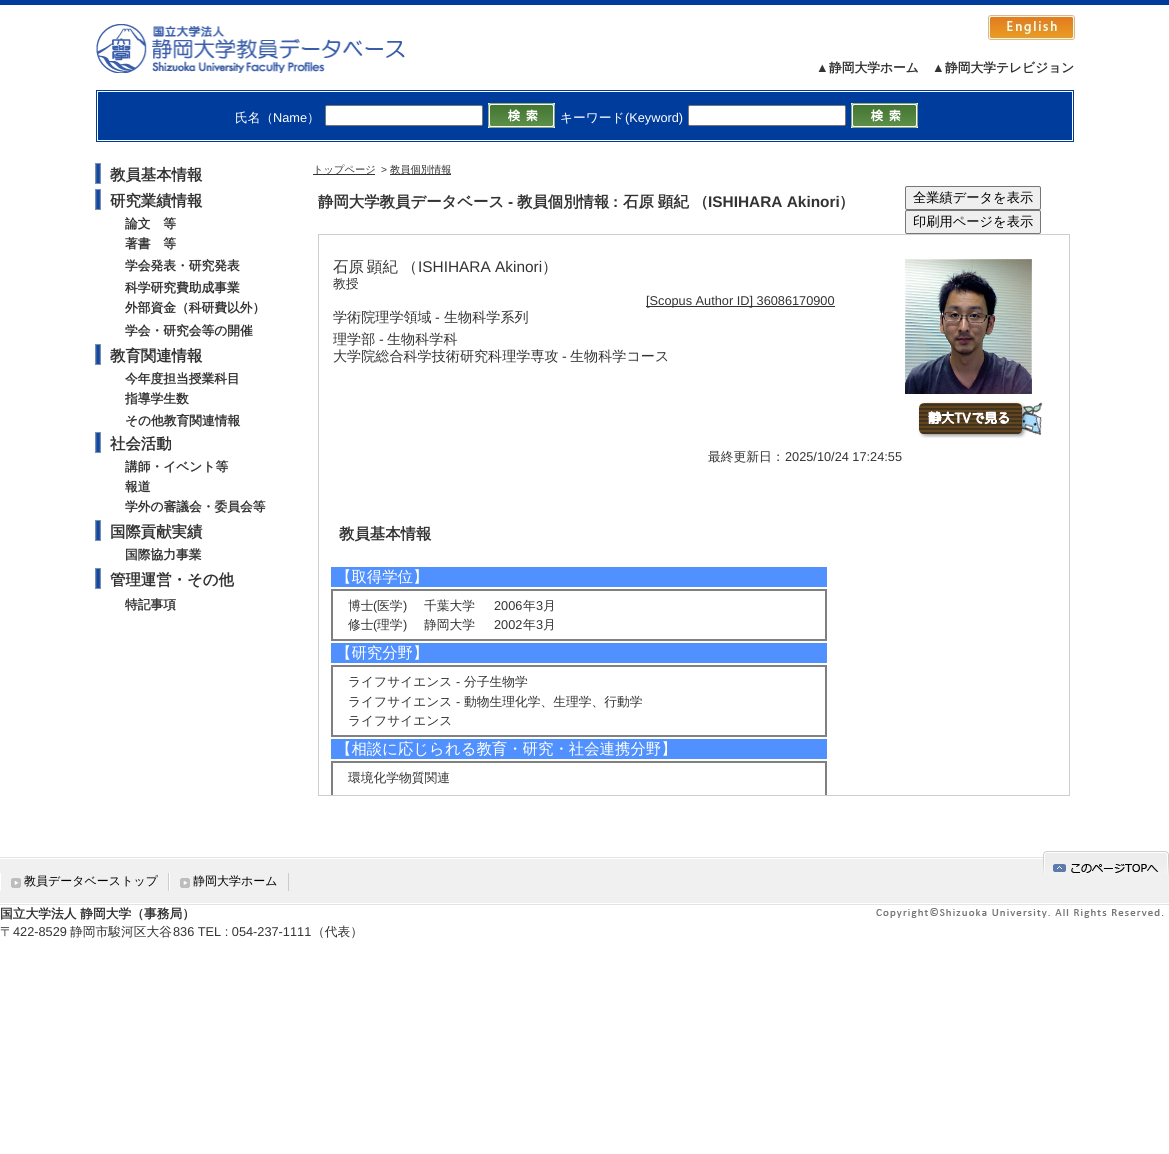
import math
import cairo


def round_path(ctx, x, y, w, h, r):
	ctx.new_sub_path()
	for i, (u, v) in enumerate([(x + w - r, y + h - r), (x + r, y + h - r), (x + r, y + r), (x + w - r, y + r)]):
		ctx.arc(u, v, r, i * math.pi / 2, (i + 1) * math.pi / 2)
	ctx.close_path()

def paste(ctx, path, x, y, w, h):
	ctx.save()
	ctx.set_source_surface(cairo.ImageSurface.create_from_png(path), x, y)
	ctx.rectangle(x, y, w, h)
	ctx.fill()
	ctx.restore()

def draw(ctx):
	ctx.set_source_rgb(1, 1, 1)
	ctx.paint()
	ctx.set_source_rgb(0, 0.235, 0.612)
	ctx.rectangle(0, 0, 1169, 5)
	ctx.fill()
	paste(ctx, 'media/1.png', 96, 24, 309, 49)
	paste(ctx, 'media/2.png', 988, 15, 87, 25)
	ctx.select_font_face('Liberation Sans', cairo.FONT_SLANT_NORMAL, cairo.FONT_WEIGHT_BOLD)
	ctx.set_font_size(12.75)
	ctx.set_source_rgb(0.2, 0.2, 0.2)
	ctx.move_to(816, 72)
	ctx.show_text('▲')
	ctx.select_font_face('WenQuanYi Zen Hei', cairo.FONT_SLANT_NORMAL, cairo.FONT_WEIGHT_BOLD)
	ctx.move_to(829, 72)
	ctx.show_text('静岡大学ホーム')
	ctx.select_font_face('Liberation Sans', cairo.FONT_SLANT_NORMAL, cairo.FONT_WEIGHT_BOLD)
	ctx.move_to(932, 72)
	ctx.show_text('▲')
	ctx.select_font_face('WenQuanYi Zen Hei', cairo.FONT_SLANT_NORMAL, cairo.FONT_WEIGHT_BOLD)
	ctx.move_to(945, 72)
	ctx.show_text('静岡大学テレビジョン')
	ctx.set_source_rgb(0, 0.235, 0.612)
	ctx.rectangle(96, 90, 978, 52)
	ctx.fill()
	ctx.rectangle(97.5, 91.5, 975, 49)
	ctx.set_source_rgb(1, 1, 1)
	ctx.set_line_width(1)
	ctx.stroke()
	ctx.select_font_face('WenQuanYi Zen Hei Medium')
	ctx.move_to(235, 122)
	ctx.show_text('氏名（')
	ctx.select_font_face('Liberation Sans')
	ctx.move_to(273, 122)
	ctx.show_text('Name')
	ctx.select_font_face('WenQuanYi Zen Hei Medium')
	ctx.move_to(307, 122)
	ctx.show_text('）')
	round_path(ctx, 325.5, 105.5, 157, 20, 1.5)
	ctx.fill_preserve()
	ctx.set_source_rgb(0.463, 0.463, 0.463)
	ctx.stroke()
	paste(ctx, 'media/3.png', 488, 103, 67, 25)
	ctx.set_source_rgb(1, 1, 1)
	ctx.move_to(560, 122)
	ctx.show_text('キーワード')
	ctx.select_font_face('Liberation Sans')
	ctx.move_to(625, 122)
	ctx.show_text('(Keyword)')
	round_path(ctx, 688.5, 105.5, 157, 20, 1.5)
	ctx.fill_preserve()
	ctx.set_source_rgb(0.463, 0.463, 0.463)
	ctx.stroke()
	paste(ctx, 'media/3.png', 851, 103, 67, 25)
	paste(ctx, 'media/4.png', 95, 163, 6, 21)
	ctx.select_font_face('WenQuanYi Zen Hei', cairo.FONT_SLANT_NORMAL, cairo.FONT_WEIGHT_BOLD)
	ctx.set_font_size(15.4)
	ctx.set_source_rgb(0.2, 0.2, 0.2)
	ctx.move_to(110, 180)
	ctx.show_text('教員基本情報')
	paste(ctx, 'media/4.png', 95, 189, 6, 21)
	ctx.move_to(110, 206)
	ctx.show_text('研究業績情報')
	ctx.set_font_size(12.75)
	for x, y, s in [
		(125, 228, '論文　等'),
		(125, 248, '著書　等'),
		(125, 270, '学会発表・研究発表'),
		(125, 292, '科学研究費助成事業'),
		(125, 312, '外部資金（科研費以外）'),
		(125, 335, '学会・研究会等の開催'),
	]:
		ctx.move_to(x, y)
		ctx.show_text(s)
	paste(ctx, 'media/4.png', 95, 344, 6, 21)
	ctx.set_font_size(15.4)
	ctx.move_to(110, 361)
	ctx.show_text('教育関連情報')
	ctx.set_font_size(12.75)
	for x, y, s in [
		(125, 383, '今年度担当授業科目'),
		(125, 403, '指導学生数'),
		(125, 425, 'その他教育関連情報'),
	]:
		ctx.move_to(x, y)
		ctx.show_text(s)
	paste(ctx, 'media/4.png', 95, 432, 6, 21)
	ctx.set_font_size(15.4)
	ctx.move_to(110, 449)
	ctx.show_text('社会活動')
	ctx.set_font_size(12.75)
	for x, y, s in [
		(125, 471, '講師・イベント等'),
		(125, 491, '報道'),
		(125, 511, '学外の審議会・委員会等'),
	]:
		ctx.move_to(x, y)
		ctx.show_text(s)
	paste(ctx, 'media/4.png', 95, 520, 6, 21)
	ctx.set_font_size(15.4)
	ctx.move_to(110, 537)
	ctx.show_text('国際貢献実績')
	ctx.set_font_size(12.75)
	ctx.move_to(125, 559)
	ctx.show_text('国際協力事業')
	paste(ctx, 'media/4.png', 95, 568, 6, 21)
	ctx.set_font_size(15.4)
	ctx.move_to(110, 585)
	ctx.show_text('管理運営・その他')
	ctx.set_font_size(12.75)
	ctx.move_to(125, 609)
	ctx.show_text('特記事項')
	ctx.rectangle(313, 174, 62, 1)
	ctx.fill()
	ctx.select_font_face('WenQuanYi Zen Hei Medium')
	ctx.set_font_size(10.25)
	ctx.move_to(313, 173)
	ctx.show_text('トップページ')
	ctx.select_font_face('Liberation Sans')
	ctx.move_to(381, 173)
	ctx.show_text('>')
	ctx.rectangle(390, 174, 61, 1)
	ctx.fill()
	ctx.select_font_face('WenQuanYi Zen Hei Medium')
	ctx.move_to(390, 173)
	ctx.show_text('教員個別情報')
	ctx.select_font_face('WenQuanYi Zen Hei', cairo.FONT_SLANT_NORMAL, cairo.FONT_WEIGHT_BOLD)
	ctx.set_font_size(15.4)
	ctx.move_to(318, 207)
	ctx.show_text('静岡大学教員データベース')
	ctx.select_font_face('Liberation Sans', cairo.FONT_SLANT_NORMAL, cairo.FONT_WEIGHT_BOLD)
	ctx.move_to(508, 207)
	ctx.show_text('-')
	ctx.select_font_face('WenQuanYi Zen Hei', cairo.FONT_SLANT_NORMAL, cairo.FONT_WEIGHT_BOLD)
	ctx.move_to(517, 207)
	ctx.show_text('教員個別情報')
	ctx.select_font_face('Liberation Sans', cairo.FONT_SLANT_NORMAL, cairo.FONT_WEIGHT_BOLD)
	ctx.move_to(613, 207)
	ctx.show_text(':')
	ctx.select_font_face('WenQuanYi Zen Hei', cairo.FONT_SLANT_NORMAL, cairo.FONT_WEIGHT_BOLD)
	for x, y, s in [
		(623, 207, '石原'),
		(658, 207, '顕紀'),
		(693, 207, '（'),
	]:
		ctx.move_to(x, y)
		ctx.show_text(s)
	ctx.select_font_face('Liberation Sans', cairo.FONT_SLANT_NORMAL, cairo.FONT_WEIGHT_BOLD)
	ctx.move_to(708, 207)
	ctx.show_text('ISHIHARA Akinori')
	ctx.select_font_face('WenQuanYi Zen Hei', cairo.FONT_SLANT_NORMAL, cairo.FONT_WEIGHT_BOLD)
	ctx.move_to(839, 207)
	ctx.show_text('）')
	ctx.rectangle(318.5, 234.5, 751, 561)
	ctx.set_source_rgb(0.808, 0.808, 0.808)
	ctx.stroke()
	ctx.select_font_face('WenQuanYi Zen Hei Medium')
	ctx.set_source_rgb(0.2, 0.2, 0.2)
	for x, y, s in [
		(333, 272, '石原'),
		(367, 272, '顕紀'),
		(402, 272, '（'),
	]:
		ctx.move_to(x, y)
		ctx.show_text(s)
	ctx.select_font_face('Liberation Sans')
	ctx.move_to(418, 272)
	ctx.show_text('ISHIHARA Akinori')
	ctx.select_font_face('WenQuanYi Zen Hei Medium')
	ctx.move_to(542, 272)
	ctx.show_text('）')
	ctx.set_font_size(12.75)
	ctx.move_to(333, 288)
	ctx.show_text('教授')
	ctx.rectangle(646, 306, 189, 1)
	ctx.fill()
	ctx.select_font_face('Liberation Sans')
	ctx.move_to(646, 305)
	ctx.show_text('[Scopus Author ID] 36086170900')
	ctx.select_font_face('WenQuanYi Zen Hei Medium')
	ctx.set_font_size(14.1)
	ctx.move_to(333, 322)
	ctx.show_text('学術院理学領域')
	ctx.select_font_face('Liberation Sans')
	ctx.move_to(435, 322)
	ctx.show_text('-')
	ctx.select_font_face('WenQuanYi Zen Hei Medium')
	ctx.move_to(444, 322)
	ctx.show_text('生物科学系列')
	ctx.move_to(333, 344)
	ctx.show_text('理学部')
	ctx.select_font_face('Liberation Sans')
	ctx.move_to(379, 344)
	ctx.show_text('-')
	ctx.select_font_face('WenQuanYi Zen Hei Medium')
	ctx.move_to(387, 344)
	ctx.show_text('生物科学科')
	ctx.move_to(333, 361)
	ctx.show_text('大学院総合科学技術研究科理学専攻')
	ctx.select_font_face('Liberation Sans')
	ctx.move_to(562, 361)
	ctx.show_text('-')
	ctx.select_font_face('WenQuanYi Zen Hei Medium')
	ctx.move_to(570, 361)
	ctx.show_text('生物科学コース')
	paste(ctx, 'media/5.png', 905, 259, 127, 135)
	paste(ctx, 'media/6.png', 917, 400, 126, 38)
	ctx.set_font_size(12.75)
	ctx.move_to(708, 461)
	ctx.show_text('最終更新日：')
	ctx.select_font_face('Liberation Sans')
	ctx.move_to(785, 461)
	ctx.show_text('2025/10/24 17:24:55')
	ctx.select_font_face('WenQuanYi Zen Hei', cairo.FONT_SLANT_NORMAL, cairo.FONT_WEIGHT_BOLD)
	ctx.set_font_size(15.4)
	ctx.move_to(339, 539)
	ctx.show_text('教員基本情報')
	ctx.set_source_rgb(0.314, 0.565, 1)
	ctx.rectangle(331, 567, 496, 20)
	ctx.fill()
	ctx.select_font_face('WenQuanYi Zen Hei Medium')
	ctx.set_source_rgb(1, 1, 1)
	ctx.move_to(336, 582)
	ctx.show_text('【取得学位】')
	ctx.rectangle(332, 590, 494, 50)
	ctx.set_source_rgb(0.502, 0.502, 0.502)
	ctx.set_line_width(2)
	ctx.stroke()
	ctx.set_font_size(12.75)
	ctx.set_source_rgb(0.2, 0.2, 0.2)
	ctx.move_to(348, 610)
	ctx.show_text('博士')
	ctx.select_font_face('Liberation Sans')
	ctx.move_to(373, 610)
	ctx.show_text('(')
	ctx.select_font_face('WenQuanYi Zen Hei Medium')
	ctx.move_to(377, 610)
	ctx.show_text('医学')
	ctx.select_font_face('Liberation Sans')
	ctx.move_to(403, 610)
	ctx.show_text(')')
	ctx.select_font_face('WenQuanYi Zen Hei Medium')
	ctx.move_to(424, 610)
	ctx.show_text('千葉大学')
	ctx.select_font_face('Liberation Sans')
	ctx.move_to(494, 610)
	ctx.show_text('2006')
	ctx.select_font_face('WenQuanYi Zen Hei Medium')
	ctx.move_to(523, 610)
	ctx.show_text('年')
	ctx.select_font_face('Liberation Sans')
	ctx.move_to(536, 610)
	ctx.show_text('3')
	ctx.select_font_face('WenQuanYi Zen Hei Medium')
	ctx.move_to(543, 610)
	ctx.show_text('月')
	ctx.move_to(348, 629)
	ctx.show_text('修士')
	ctx.select_font_face('Liberation Sans')
	ctx.move_to(373, 629)
	ctx.show_text('(')
	ctx.select_font_face('WenQuanYi Zen Hei Medium')
	ctx.move_to(377, 629)
	ctx.show_text('理学')
	ctx.select_font_face('Liberation Sans')
	ctx.move_to(403, 629)
	ctx.show_text(')')
	ctx.select_font_face('WenQuanYi Zen Hei Medium')
	ctx.move_to(424, 629)
	ctx.show_text('静岡大学')
	ctx.select_font_face('Liberation Sans')
	ctx.move_to(494, 629)
	ctx.show_text('2002')
	ctx.select_font_face('WenQuanYi Zen Hei Medium')
	ctx.move_to(523, 629)
	ctx.show_text('年')
	ctx.select_font_face('Liberation Sans')
	ctx.move_to(536, 629)
	ctx.show_text('3')
	ctx.select_font_face('WenQuanYi Zen Hei Medium')
	ctx.move_to(543, 629)
	ctx.show_text('月')
	ctx.set_source_rgb(0.314, 0.565, 1)
	ctx.rectangle(331, 643, 496, 20)
	ctx.fill()
	ctx.set_font_size(15.4)
	ctx.set_source_rgb(1, 1, 1)
	ctx.move_to(336, 658)
	ctx.show_text('【研究分野】')
	ctx.rectangle(332, 666, 494, 70)
	ctx.set_source_rgb(0.502, 0.502, 0.502)
	ctx.stroke()
	ctx.set_font_size(12.75)
	ctx.set_source_rgb(0.2, 0.2, 0.2)
	ctx.move_to(348, 686)
	ctx.show_text('ライフサイエンス')
	ctx.select_font_face('Liberation Sans')
	ctx.move_to(456, 686)
	ctx.show_text('-')
	ctx.select_font_face('WenQuanYi Zen Hei Medium')
	ctx.move_to(464, 686)
	ctx.show_text('分子生物学')
	ctx.move_to(348, 706)
	ctx.show_text('ライフサイエンス')
	ctx.select_font_face('Liberation Sans')
	ctx.move_to(456, 706)
	ctx.show_text('-')
	ctx.select_font_face('WenQuanYi Zen Hei Medium')
	ctx.move_to(464, 706)
	ctx.show_text('動物生理化学、生理学、行動学')
	ctx.move_to(348, 725)
	ctx.show_text('ライフサイエンス')
	ctx.set_source_rgb(0.314, 0.565, 1)
	ctx.rectangle(331, 739, 496, 20)
	ctx.fill()
	ctx.set_font_size(15.4)
	ctx.set_source_rgb(1, 1, 1)
	ctx.move_to(336, 754)
	ctx.show_text('【相談に応じられる教育・研究・社会連携分野】')
	ctx.save()
	ctx.rectangle(319, 235, 750, 560)
	ctx.clip()
	ctx.rectangle(332, 762, 494, 50)
	ctx.set_source_rgb(0.502, 0.502, 0.502)
	ctx.stroke()
	ctx.restore()
	ctx.set_font_size(12.75)
	ctx.set_source_rgb(0.2, 0.2, 0.2)
	ctx.move_to(348, 782)
	ctx.show_text('環境化学物質関連')
	ctx.set_source_rgb(0.937, 0.937, 0.937)
	round_path(ctx, 905.5, 186.5, 135, 23, 1.5)
	ctx.fill_preserve()
	ctx.set_source_rgb(0.463, 0.463, 0.463)
	ctx.set_line_width(1)
	ctx.stroke()
	ctx.set_font_size(13.25)
	ctx.set_source_rgb(0, 0, 0)
	ctx.move_to(913, 202)
	ctx.show_text('全業績データを表示')
	ctx.set_source_rgb(0.937, 0.937, 0.937)
	round_path(ctx, 905.5, 210.5, 135, 23, 1.5)
	ctx.fill_preserve()
	ctx.set_source_rgb(0.463, 0.463, 0.463)
	ctx.stroke()
	ctx.set_source_rgb(0, 0, 0)
	ctx.move_to(913, 226)
	ctx.show_text('印刷用ページを表示')
	paste(ctx, 'media/7.png', 0, 857, 1169, 48)
	paste(ctx, 'media/8.png', 1043, 851, 126, 23)
	paste(ctx, 'media/9.png', 11, 878, 10, 10)
	ctx.set_source_rgb(0.8, 0.8, 0.8)
	ctx.rectangle(168, 873, 1, 18)
	ctx.fill()
	ctx.set_source_rgb(1, 1, 1)
	ctx.rectangle(0, 873, 1, 18)
	ctx.fill()
	ctx.set_font_size(12)
	ctx.set_source_rgb(0, 0, 0)
	ctx.move_to(24, 885)
	ctx.show_text('教員データベーストップ')
	paste(ctx, 'media/9.png', 180, 878, 10, 10)
	ctx.set_source_rgb(0.8, 0.8, 0.8)
	ctx.rectangle(288, 873, 1, 18)
	ctx.fill()
	ctx.set_source_rgb(1, 1, 1)
	ctx.rectangle(169, 873, 1, 18)
	ctx.fill()
	ctx.set_source_rgb(0, 0, 0)
	ctx.move_to(193, 885)
	ctx.show_text('静岡大学ホーム')
	ctx.select_font_face('WenQuanYi Zen Hei', cairo.FONT_SLANT_NORMAL, cairo.FONT_WEIGHT_BOLD)
	ctx.set_font_size(12.75)
	ctx.set_source_rgb(0.2, 0.2, 0.2)
	ctx.move_to(0, 918)
	ctx.show_text('国立大学法人 静岡大学（事務局）')
	ctx.select_font_face('WenQuanYi Zen Hei Medium')
	ctx.move_to(0, 936)
	ctx.show_text('〒')
	ctx.select_font_face('Liberation Sans')
	ctx.move_to(13, 936)
	ctx.show_text('422-8529')
	ctx.select_font_face('WenQuanYi Zen Hei Medium')
	ctx.move_to(70, 936)
	ctx.show_text('静岡市駿河区大谷')
	ctx.select_font_face('Liberation Sans')
	ctx.move_to(173, 936)
	ctx.show_text('836 TEL : 054-237-1111')
	ctx.select_font_face('WenQuanYi Zen Hei Medium')
	ctx.move_to(312, 936)
	ctx.show_text('（代表）')
	paste(ctx, 'media/10.png', 876, 908, 288, 10)


surface = cairo.ImageSurface(cairo.FORMAT_RGB24, 1169, 1154)
ctx = cairo.Context(surface)
options = cairo.FontOptions()
options.set_hint_metrics(cairo.HINT_METRICS_OFF)
options.set_hint_style(cairo.HINT_STYLE_NONE)
ctx.set_font_options(options)
ctx.set_miter_limit(4)
draw(ctx)
surface.write_to_png('image.png')
